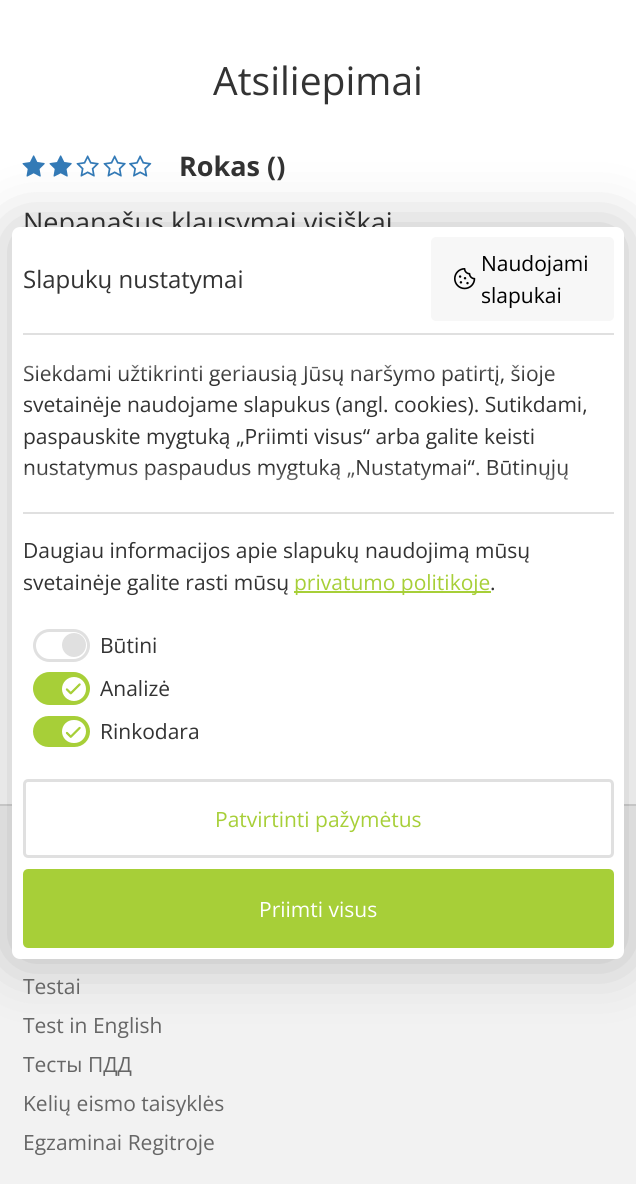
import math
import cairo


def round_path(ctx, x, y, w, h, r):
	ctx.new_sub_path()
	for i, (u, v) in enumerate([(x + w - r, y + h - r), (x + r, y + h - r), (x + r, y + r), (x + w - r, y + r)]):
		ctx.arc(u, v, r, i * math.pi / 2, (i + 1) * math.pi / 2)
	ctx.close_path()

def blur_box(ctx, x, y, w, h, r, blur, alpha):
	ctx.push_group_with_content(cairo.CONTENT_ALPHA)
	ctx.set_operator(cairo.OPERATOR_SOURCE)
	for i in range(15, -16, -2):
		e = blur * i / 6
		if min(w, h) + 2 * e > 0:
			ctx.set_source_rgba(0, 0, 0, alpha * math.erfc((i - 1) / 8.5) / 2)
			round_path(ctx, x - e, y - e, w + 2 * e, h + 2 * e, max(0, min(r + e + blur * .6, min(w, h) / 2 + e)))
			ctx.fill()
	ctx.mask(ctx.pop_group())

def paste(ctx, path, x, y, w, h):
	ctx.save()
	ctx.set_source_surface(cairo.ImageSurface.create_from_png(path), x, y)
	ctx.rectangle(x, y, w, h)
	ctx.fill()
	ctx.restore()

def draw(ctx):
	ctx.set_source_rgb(1, 1, 1)
	ctx.paint()
	ctx.select_font_face('Open Sans')
	ctx.set_font_size(39)
	ctx.set_source_rgb(0.2, 0.2, 0.2)
	ctx.move_to(213, 95)
	ctx.show_text('Atsiliepimai')
	paste(ctx, 'media/1.png', 22, 155, 23, 22)
	paste(ctx, 'media/1.png', 49, 155, 23, 22)
	paste(ctx, 'media/2.png', 76, 155, 23, 22)
	paste(ctx, 'media/2.png', 103, 155, 23, 22)
	paste(ctx, 'media/3.png', 129, 155, 23, 22)
	ctx.select_font_face('Open Sans', cairo.FONT_SLANT_NORMAL, cairo.FONT_WEIGHT_BOLD)
	ctx.set_font_size(27)
	ctx.move_to(179, 176)
	ctx.show_text('Rokas ()')
	ctx.select_font_face('Open Sans')
	ctx.move_to(23, 232)
	ctx.show_text('Nepanašus klausymai visiškai')
	ctx.set_source_rgb(0.949, 0.949, 0.949)
	ctx.rectangle(0, 806, 636, 378)
	ctx.fill()
	ctx.set_source_rgb(0.847, 0.847, 0.847)
	ctx.rectangle(0, 804, 636, 2)
	ctx.fill()
	ctx.set_source_rgb(0, 0, 0)
	blur_box(ctx, 12, 227, 612, 732, 8, 30, 0.25)
	ctx.set_source_rgb(1, 1, 1)
	round_path(ctx, 12, 227, 612, 732, 8)
	ctx.fill()
	ctx.set_font_size(24)
	ctx.set_source_rgb(0.2, 0.2, 0.2)
	ctx.move_to(23, 288)
	ctx.show_text('Slapukų nustatymai')
	ctx.set_source_rgb(0.965, 0.965, 0.965)
	round_path(ctx, 431, 237, 183, 84, 5)
	ctx.fill()
	paste(ctx, 'media/4.png', 454, 268, 22, 22)
	ctx.set_font_size(21)
	ctx.set_source_rgb(0, 0, 0)
	ctx.move_to(481, 271)
	ctx.show_text('Naudojami')
	ctx.move_to(481, 303)
	ctx.show_text('slapukai')
	ctx.set_source_rgb(0.878, 0.878, 0.878)
	ctx.rectangle(23, 333, 591, 2)
	ctx.fill()
	ctx.rectangle(23, 512, 591, 2)
	ctx.fill()
	ctx.set_source_rgb(0.2, 0.2, 0.2)
	for x, y, s in [
		(23, 381, 'Siekdami užtikrinti geriausią Jūsų naršymo patirtį, šioje'),
		(23, 412, 'svetainėje naudojame slapukus (angl. cookies). Sutikdami,'),
		(23, 444, 'paspauskite mygtuką „Priimti visus“ arba galite keisti'),
		(23, 475, 'nustatymus paspaudus mygtuką „Nustatymai“. Būtinųjų'),
	]:
		ctx.move_to(x, y)
		ctx.show_text(s)
	gradient = cairo.LinearGradient(318, 378, 318, 333)
	gradient.add_color_stop_rgba(0, 1, 1, 1, 0)
	gradient.add_color_stop_rgba(1, 1, 1, 1, 1)
	ctx.set_source(gradient)
	ctx.rectangle(23, 364, 531, 13)
	ctx.fill()
	gradient = cairo.LinearGradient(318, 467, 318, 512)
	gradient.add_color_stop_rgba(0, 1, 1, 1, 0)
	gradient.add_color_stop_rgba(1, 1, 1, 1, 1)
	ctx.set_source(gradient)
	ctx.rectangle(24, 468, 543, 12)
	ctx.fill()
	ctx.set_source_rgb(0.2, 0.2, 0.2)
	ctx.move_to(23, 558)
	ctx.show_text('Daugiau informacijos apie slapukų naudojimą mūsų')
	ctx.move_to(23, 590)
	ctx.show_text('svetainėje galite rasti mūsų')
	ctx.set_source_rgb(0.655, 0.812, 0.22)
	ctx.rectangle(294, 591, 197, 2)
	ctx.fill()
	ctx.move_to(294, 590)
	ctx.show_text('privatumo politikoje')
	ctx.set_source_rgb(0.2, 0.2, 0.2)
	ctx.move_to(490, 590)
	ctx.show_text('.')
	round_path(ctx, 34.5, 630.5, 54, 30, 15)
	ctx.set_source_rgb(0.878, 0.878, 0.878)
	ctx.set_line_width(3)
	ctx.stroke()
	ctx.arc(74, 645, 12, 0, 2 * math.pi)
	ctx.fill()
	ctx.set_source_rgb(0.2, 0.2, 0.2)
	ctx.move_to(100, 653)
	ctx.show_text('Būtini')
	ctx.set_source_rgb(0.655, 0.812, 0.22)
	round_path(ctx, 34.5, 673.5, 54, 30, 15)
	ctx.fill_preserve()
	ctx.stroke()
	ctx.set_source_rgb(1, 1, 1)
	ctx.arc(74, 689, 12, 0, 2 * math.pi)
	ctx.fill()
	paste(ctx, 'media/5.png', 65, 683, 16, 12)
	ctx.set_source_rgb(0.2, 0.2, 0.2)
	ctx.move_to(100, 696)
	ctx.show_text('Analizė')
	ctx.set_source_rgb(0.655, 0.812, 0.22)
	round_path(ctx, 34.5, 717.5, 54, 28, 14)
	ctx.fill_preserve()
	ctx.stroke()
	ctx.set_source_rgb(1, 1, 1)
	round_path(ctx, 62, 720, 24, 23, 11.5)
	ctx.fill()
	paste(ctx, 'media/6.png', 65, 726, 16, 12)
	ctx.set_source_rgb(0.2, 0.2, 0.2)
	ctx.move_to(100, 739)
	ctx.show_text('Rinkodara')
	round_path(ctx, 24.5, 780.5, 588, 76, 3.5)
	ctx.set_source_rgb(0.878, 0.878, 0.878)
	ctx.stroke()
	ctx.set_source_rgb(0.655, 0.812, 0.22)
	ctx.move_to(215, 827)
	ctx.show_text('Patvirtinti pažymėtus')
	round_path(ctx, 24.5, 870.5, 588, 76, 3.5)
	ctx.fill_preserve()
	ctx.stroke()
	ctx.set_source_rgb(1, 1, 1)
	ctx.move_to(259, 917)
	ctx.show_text('Priimti visus')
	ctx.set_source_rgb(0.4, 0.4, 0.4)
	for x, y, s in [
		(23, 994, 'Testai'),
		(23, 1033, 'Test in English'),
		(23, 1072, 'Тесты ПДД'),
		(23, 1111, 'Kelių eismo taisyklės'),
		(23, 1150, 'Egzaminai Regitroje'),
	]:
		ctx.move_to(x, y)
		ctx.show_text(s)


surface = cairo.ImageSurface(cairo.FORMAT_RGB24, 636, 1184)
ctx = cairo.Context(surface)
options = cairo.FontOptions()
options.set_hint_metrics(cairo.HINT_METRICS_OFF)
options.set_hint_style(cairo.HINT_STYLE_NONE)
ctx.set_font_options(options)
ctx.set_miter_limit(4)
draw(ctx)
surface.write_to_png('image.png')
